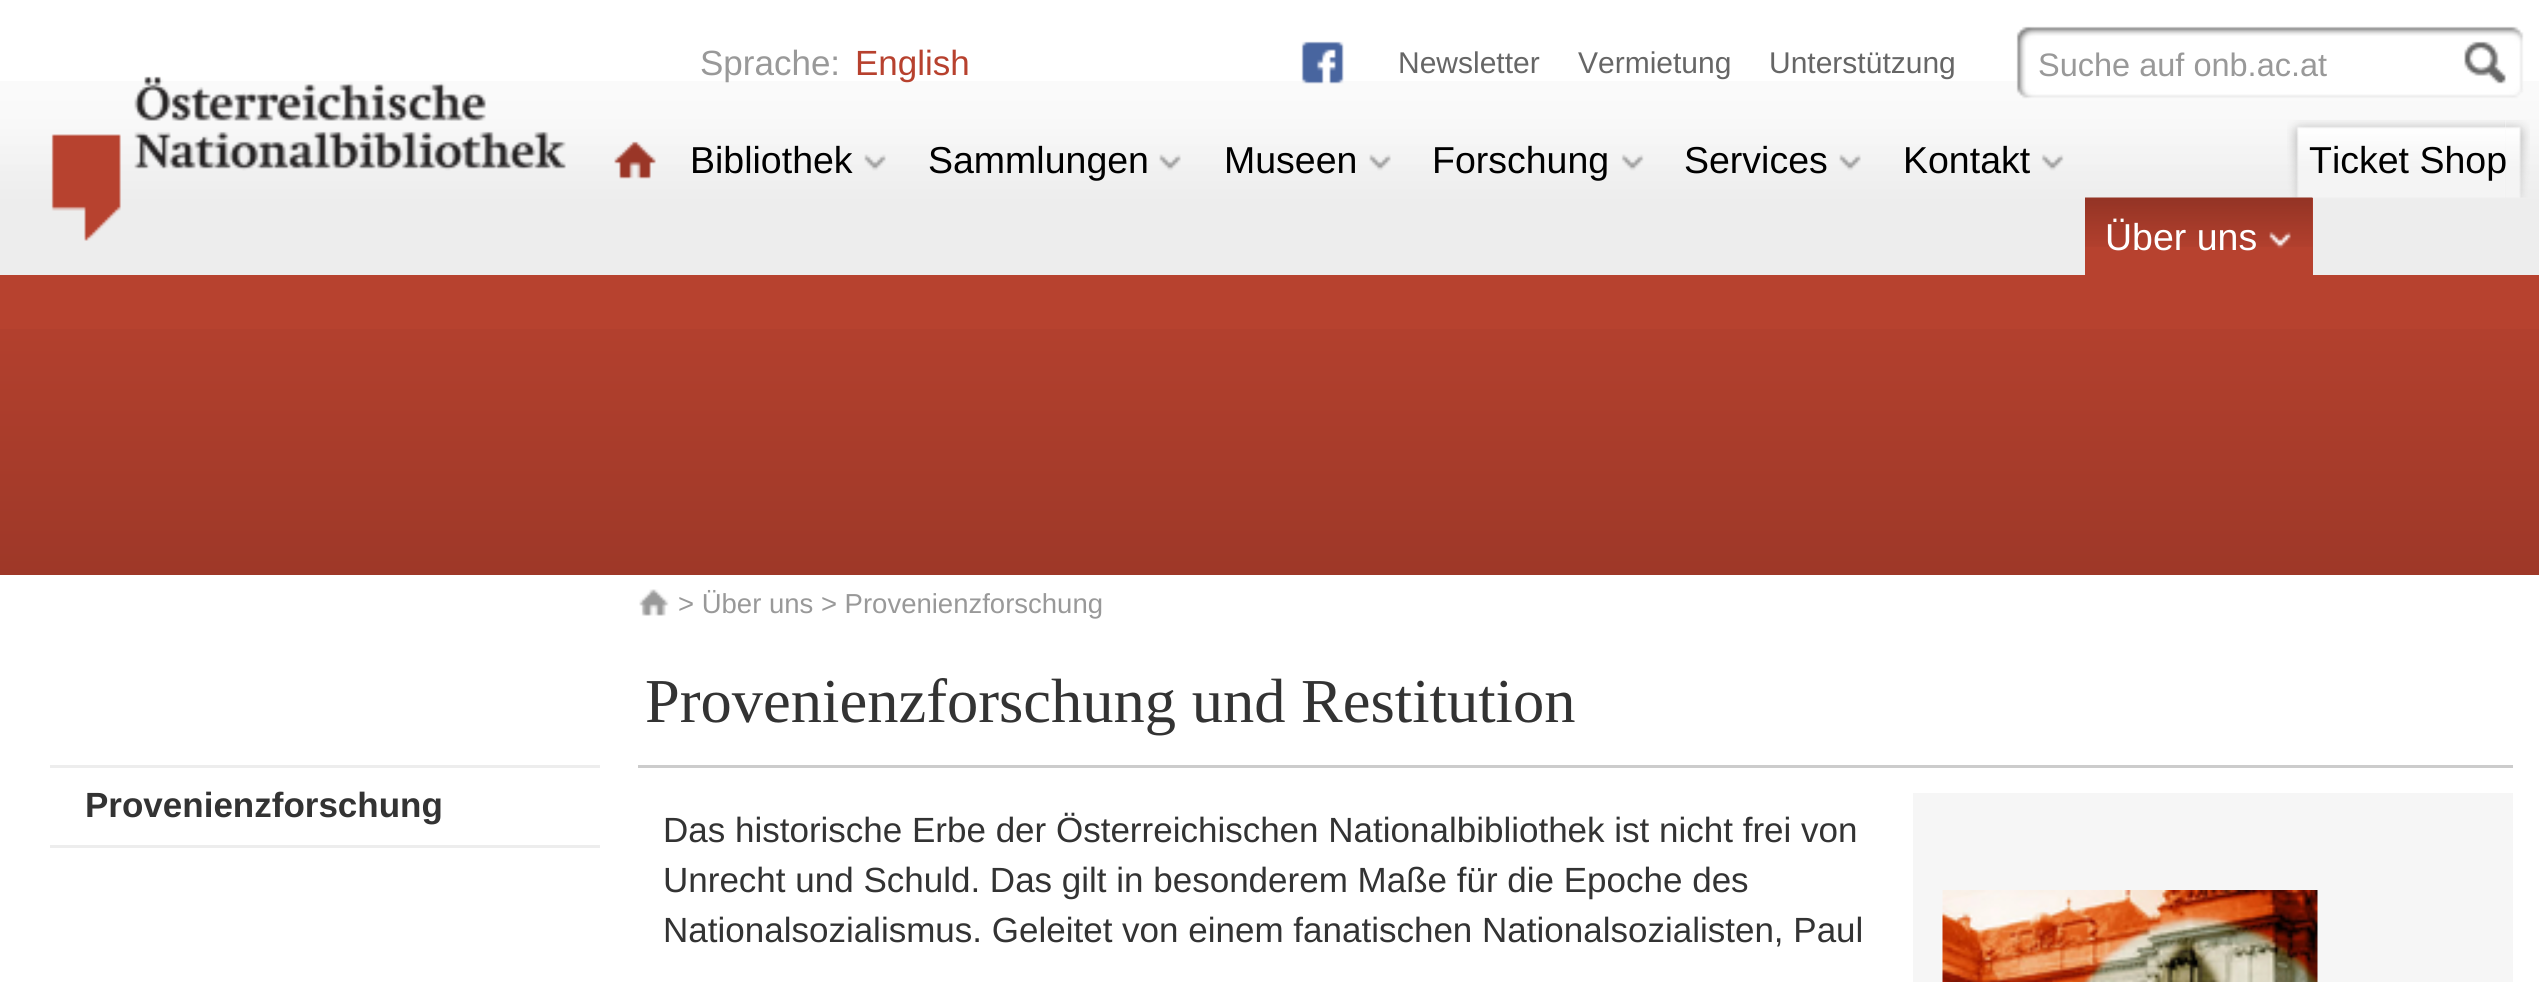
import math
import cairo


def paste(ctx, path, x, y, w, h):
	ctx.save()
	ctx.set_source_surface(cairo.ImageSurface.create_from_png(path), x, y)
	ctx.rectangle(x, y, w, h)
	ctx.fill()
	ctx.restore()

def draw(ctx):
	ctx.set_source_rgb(1, 1, 1)
	ctx.paint()
	paste(ctx, 'media/1.png', 0, 81, 2539, 194)
	ctx.select_font_face('Liberation Sans')
	ctx.set_font_size(35)
	ctx.set_source_rgb(0.6, 0.6, 0.6)
	ctx.move_to(700, 75)
	ctx.show_text('Sprache:')
	ctx.set_source_rgb(0.718, 0.255, 0.18)
	ctx.move_to(855, 75)
	ctx.show_text('English')
	paste(ctx, 'media/2.png', 1301, 41, 43, 43)
	ctx.set_font_size(30)
	ctx.set_source_rgb(0.4, 0.4, 0.4)
	for x, y, s in [
		(1398, 73, 'Newsletter'),
		(1578, 73, 'Vermietung'),
		(1769, 73, 'Unterstützung'),
	]:
		ctx.move_to(x, y)
		ctx.show_text(s)
	paste(ctx, 'media/3.png', 2016, 26, 508, 73)
	ctx.set_font_size(32.5)
	ctx.set_source_rgb(0.6, 0.6, 0.6)
	ctx.move_to(2038, 76)
	ctx.show_text('Suche auf onb.ac.at')
	paste(ctx, 'media/4.png', 2464, 41, 42, 43)
	paste(ctx, 'media/5.png', 51, 76, 515, 165)
	paste(ctx, 'media/6.png', 614, 141, 42, 38)
	ctx.set_font_size(37.5)
	ctx.set_source_rgb(0, 0, 0)
	ctx.move_to(690, 173)
	ctx.show_text('Bibliothek')
	paste(ctx, 'media/7.png', 864, 154, 22, 17)
	ctx.move_to(928, 173)
	ctx.show_text('Sammlungen')
	paste(ctx, 'media/8.png', 1159, 154, 22, 17)
	ctx.move_to(1224, 173)
	ctx.show_text('Museen')
	paste(ctx, 'media/7.png', 1369, 154, 22, 17)
	ctx.move_to(1432, 173)
	ctx.show_text('Forschung')
	paste(ctx, 'media/9.png', 1621, 154, 23, 17)
	ctx.move_to(1684, 173)
	ctx.show_text('Services')
	paste(ctx, 'media/8.png', 1839, 154, 22, 17)
	ctx.move_to(1903, 173)
	ctx.show_text('Kontakt')
	paste(ctx, 'media/9.png', 2041, 154, 23, 17)
	paste(ctx, 'media/10.png', 2287, 120, 218, 78)
	paste(ctx, 'media/11.png', 2504, 120, 26, 78)
	ctx.move_to(2309, 173)
	ctx.show_text('Ticket Shop')
	ctx.set_source_rgb(0.718, 0.259, 0.184)
	ctx.rectangle(2085, 198, 228, 77)
	ctx.fill()
	paste(ctx, 'media/12.png', 2085, 197, 228, 50)
	ctx.set_source_rgb(1, 1, 1)
	ctx.move_to(2105, 250)
	ctx.show_text('Über uns')
	paste(ctx, 'media/13.png', 2269, 231, 22, 18)
	ctx.set_source_rgb(0.718, 0.259, 0.184)
	ctx.rectangle(0, 275, 2539, 54)
	ctx.fill()
	paste(ctx, 'media/14.png', 0, 329, 2539, 246)
	paste(ctx, 'media/15.png', 639, 589, 30, 27)
	ctx.set_font_size(27.5)
	ctx.set_source_rgb(0.6, 0.6, 0.6)
	ctx.move_to(678, 613)
	ctx.show_text('> Über uns > Provenienzforschung')
	ctx.set_source_rgb(0.929, 0.929, 0.929)
	ctx.rectangle(50, 765, 550, 3)
	ctx.fill()
	ctx.rectangle(50, 845, 550, 3)
	ctx.fill()
	ctx.select_font_face('Liberation Sans', cairo.FONT_SLANT_NORMAL, cairo.FONT_WEIGHT_BOLD)
	ctx.set_font_size(35)
	ctx.set_source_rgb(0.2, 0.2, 0.2)
	ctx.move_to(85, 817)
	ctx.show_text('Provenienzforschung')
	ctx.set_source_rgb(0.8, 0.8, 0.8)
	ctx.rectangle(638, 765, 1875, 3)
	ctx.fill()
	ctx.select_font_face('Liberation Serif')
	ctx.set_font_size(62.5)
	ctx.set_source_rgb(0.2, 0.2, 0.2)
	ctx.move_to(645, 722)
	ctx.show_text('Provenienzforschung und Restitution')
	ctx.select_font_face('Liberation Sans')
	ctx.set_font_size(35)
	for x, y, s in [
		(663, 842, 'Das historische Erbe der Österreichischen Nationalbibliothek ist nicht frei von'),
		(663, 892, 'Unrecht und Schuld. Das gilt in besonderem Maße für die Epoche des'),
		(663, 942, 'Nationalsozialismus. Geleitet von einem fanatischen Nationalsozialisten, Paul'),
	]:
		ctx.move_to(x, y)
		ctx.show_text(s)
	ctx.set_source_rgb(0.961, 0.961, 0.961)
	ctx.rectangle(1913, 793, 600, 189)
	ctx.fill()
	paste(ctx, 'media/16.png', 1942, 890, 376, 92)


surface = cairo.ImageSurface(cairo.FORMAT_RGB24, 2539, 982)
ctx = cairo.Context(surface)
options = cairo.FontOptions()
options.set_hint_metrics(cairo.HINT_METRICS_OFF)
options.set_hint_style(cairo.HINT_STYLE_NONE)
ctx.set_font_options(options)
ctx.set_miter_limit(4)
draw(ctx)
surface.write_to_png('image.png')
